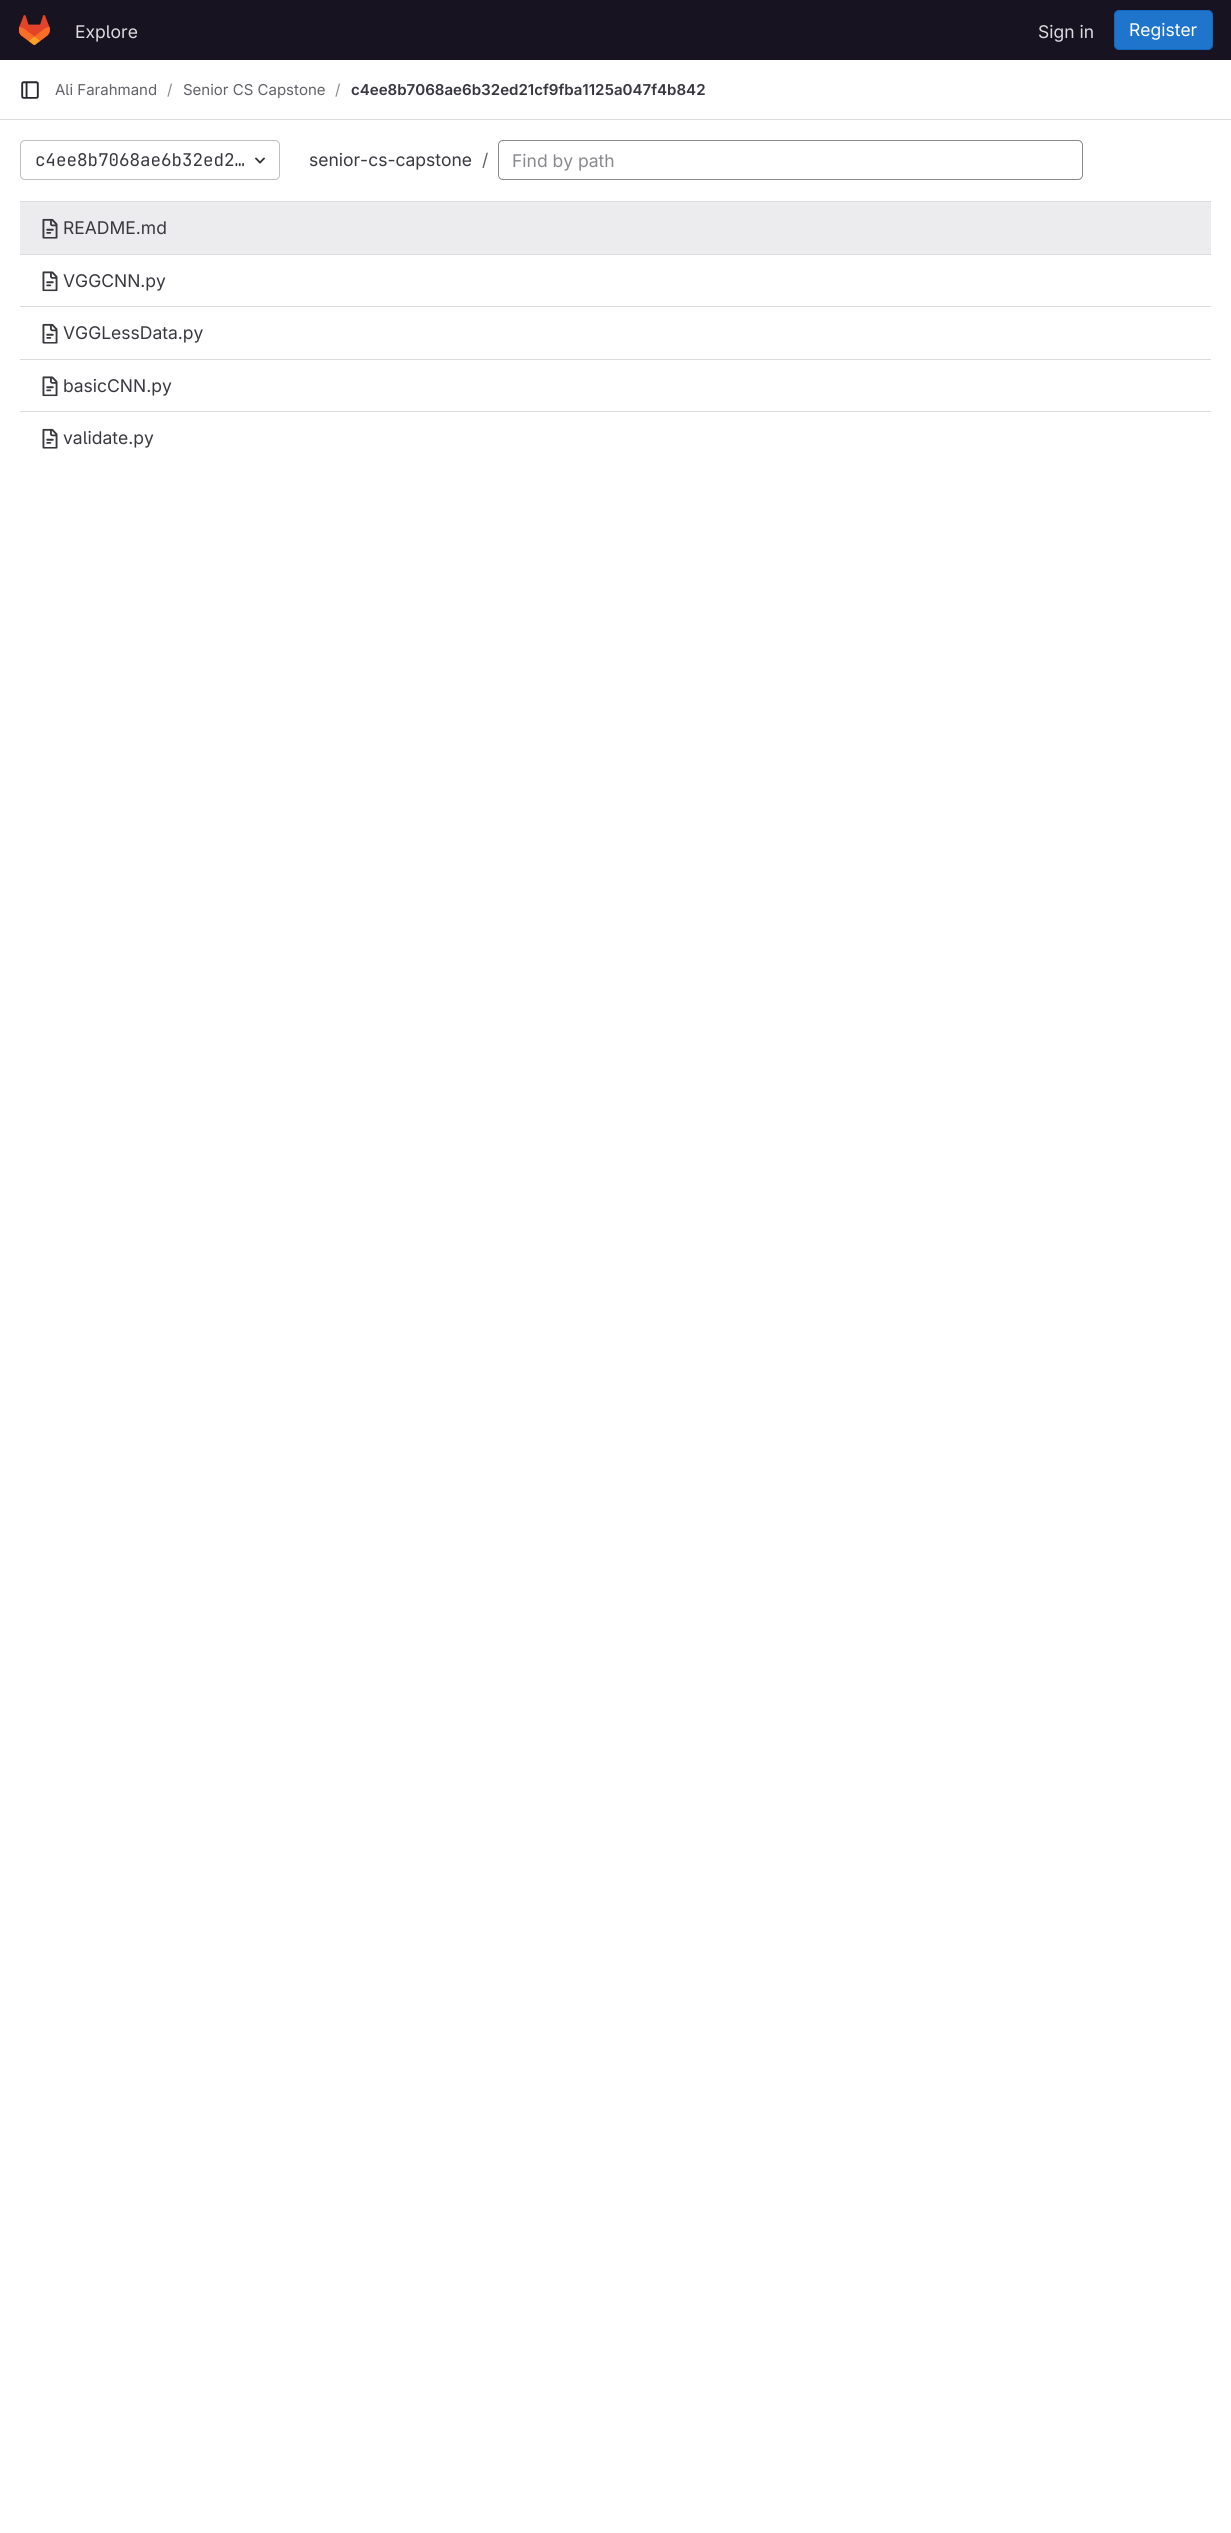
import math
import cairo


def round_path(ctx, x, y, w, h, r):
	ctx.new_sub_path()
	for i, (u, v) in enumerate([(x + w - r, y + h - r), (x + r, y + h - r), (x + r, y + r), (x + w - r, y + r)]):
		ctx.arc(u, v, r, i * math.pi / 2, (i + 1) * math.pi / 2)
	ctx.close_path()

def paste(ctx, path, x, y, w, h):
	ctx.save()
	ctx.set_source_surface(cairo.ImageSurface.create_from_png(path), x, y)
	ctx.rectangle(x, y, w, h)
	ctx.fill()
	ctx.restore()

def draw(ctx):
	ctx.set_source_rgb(1, 1, 1)
	ctx.paint()
	ctx.set_source_rgb(0.09, 0.075, 0.129)
	ctx.rectangle(0, 0, 1231, 60)
	ctx.fill()
	paste(ctx, 'media/1.png', 19, 15, 31, 30)
	ctx.select_font_face('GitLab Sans')
	ctx.set_font_size(17.5)
	ctx.set_source_rgb(0.863, 0.863, 0.871)
	ctx.move_to(75, 38)
	ctx.show_text('Explore')
	ctx.move_to(1038, 38)
	ctx.show_text('Sign in')
	ctx.set_source_rgb(0.122, 0.459, 0.796)
	round_path(ctx, 1114.5, 10.5, 98, 39, 4.5)
	ctx.fill_preserve()
	ctx.set_source_rgb(0.063, 0.408, 0.749)
	ctx.set_line_width(1)
	ctx.stroke()
	ctx.set_source_rgb(1, 1, 1)
	ctx.move_to(1129, 36)
	ctx.show_text('Register')
	ctx.set_source_rgb(0.863, 0.863, 0.871)
	ctx.rectangle(0, 119, 1231, 1)
	ctx.fill()
	paste(ctx, 'media/2.png', 21, 81, 18, 18)
	ctx.set_font_size(15)
	ctx.set_source_rgb(0.384, 0.38, 0.408)
	ctx.move_to(55, 95)
	ctx.show_text('Ali Farahmand')
	ctx.set_source_rgb(0.537, 0.533, 0.553)
	ctx.move_to(167, 95)
	ctx.show_text('/')
	ctx.set_source_rgb(0.384, 0.38, 0.408)
	ctx.move_to(183, 95)
	ctx.show_text('Senior CS Capstone')
	ctx.set_source_rgb(0.537, 0.533, 0.553)
	ctx.move_to(335, 95)
	ctx.show_text('/')
	ctx.select_font_face('GitLab Sans SemiBold')
	ctx.set_source_rgb(0.227, 0.22, 0.247)
	ctx.move_to(351, 95)
	ctx.show_text('c4ee8b7068ae6b32ed21cf9fba1125a047f4b842')
	round_path(ctx, 20.5, 140.5, 259, 39, 4.5)
	ctx.set_source_rgb(0.749, 0.749, 0.765)
	ctx.stroke()
	ctx.select_font_face('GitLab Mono')
	ctx.set_font_size(17.5)
	ctx.set_source_rgb(0.227, 0.22, 0.247)
	ctx.move_to(35, 166)
	ctx.show_text('c4ee8b7068ae6b32ed2…')
	paste(ctx, 'media/3.png', 255, 157, 10, 7)
	ctx.select_font_face('GitLab Sans')
	ctx.move_to(309, 166)
	ctx.show_text('senior-cs-capstone')
	ctx.set_source_rgb(0.384, 0.38, 0.408)
	ctx.move_to(482, 166)
	ctx.show_text('/')
	round_path(ctx, 498.5, 140.5, 584, 39, 4.5)
	ctx.set_source_rgb(0.537, 0.533, 0.553)
	ctx.stroke()
	ctx.move_to(512, 167)
	ctx.show_text('Find by path')
	ctx.set_source_rgb(0.925, 0.925, 0.937)
	ctx.rectangle(20, 202, 1191, 52)
	ctx.fill()
	ctx.set_source_rgb(0.863, 0.863, 0.871)
	ctx.rectangle(20, 201, 1191, 1)
	ctx.fill()
	paste(ctx, 'media/4.png', 42, 218, 16, 21)
	ctx.set_source_rgb(0.227, 0.22, 0.247)
	ctx.move_to(63, 234)
	ctx.show_text('README.md')
	ctx.set_source_rgb(0.863, 0.863, 0.871)
	ctx.rectangle(20, 254, 1191, 1)
	ctx.fill()
	paste(ctx, 'media/5.png', 42, 271, 16, 21)
	ctx.set_source_rgb(0.227, 0.22, 0.247)
	ctx.move_to(63, 287)
	ctx.show_text('VGGCNN.py')
	ctx.set_source_rgb(0.863, 0.863, 0.871)
	ctx.rectangle(20, 306, 1191, 1)
	ctx.fill()
	paste(ctx, 'media/6.png', 42, 323, 16, 21)
	ctx.set_source_rgb(0.227, 0.22, 0.247)
	ctx.move_to(63, 339)
	ctx.show_text('VGGLessData.py')
	ctx.set_source_rgb(0.863, 0.863, 0.871)
	ctx.rectangle(20, 359, 1191, 1)
	ctx.fill()
	paste(ctx, 'media/5.png', 42, 376, 16, 21)
	ctx.set_source_rgb(0.227, 0.22, 0.247)
	ctx.move_to(63, 392)
	ctx.show_text('basicCNN.py')
	ctx.set_source_rgb(0.863, 0.863, 0.871)
	ctx.rectangle(20, 411, 1191, 1)
	ctx.fill()
	paste(ctx, 'media/6.png', 42, 428, 16, 21)
	ctx.set_source_rgb(0.227, 0.22, 0.247)
	ctx.move_to(63, 444)
	ctx.show_text('validate.py')


surface = cairo.ImageSurface(cairo.FORMAT_RGB24, 1231, 2533)
ctx = cairo.Context(surface)
options = cairo.FontOptions()
options.set_hint_metrics(cairo.HINT_METRICS_OFF)
options.set_hint_style(cairo.HINT_STYLE_NONE)
ctx.set_font_options(options)
ctx.set_miter_limit(4)
draw(ctx)
surface.write_to_png('image.png')
